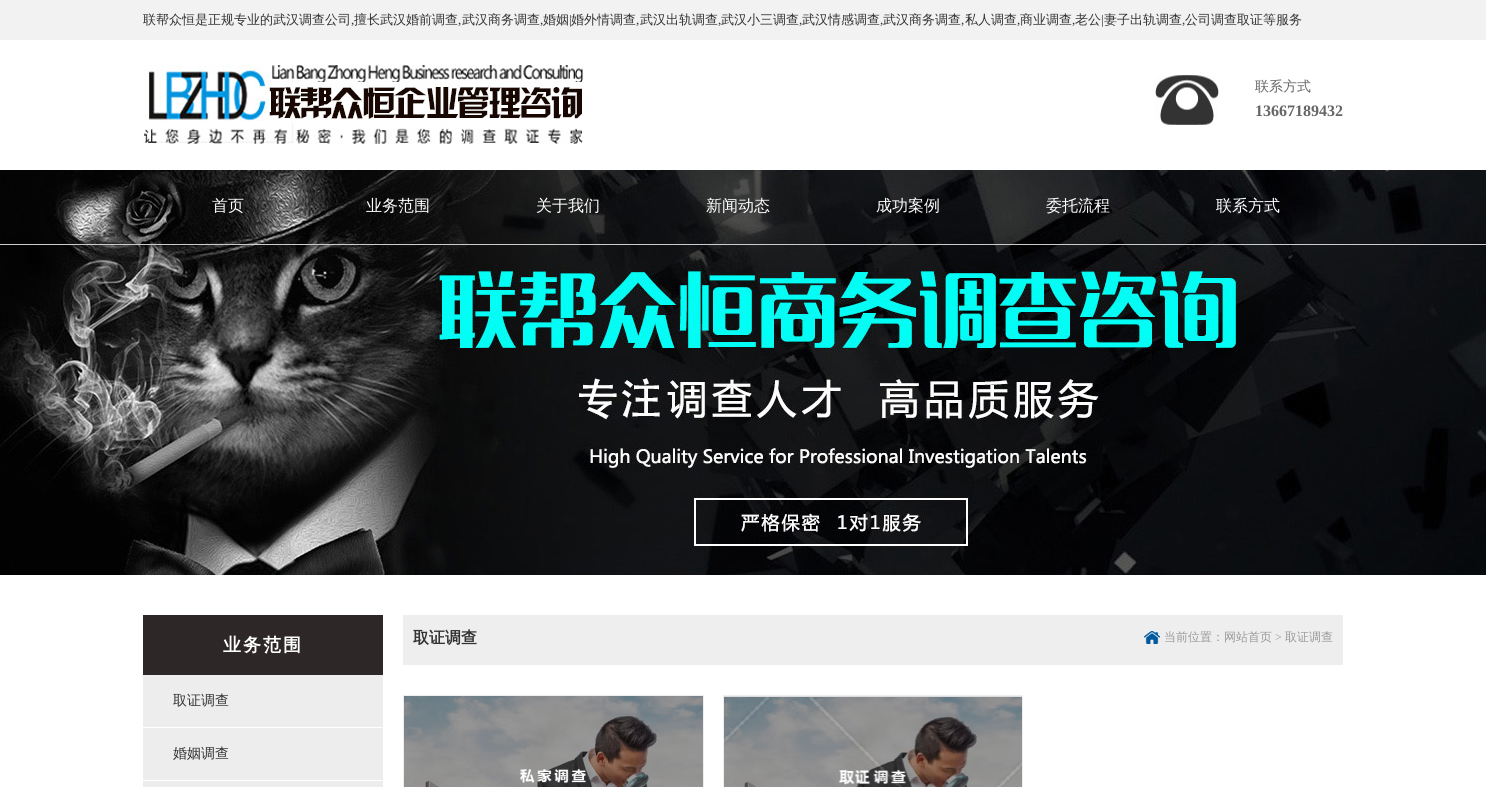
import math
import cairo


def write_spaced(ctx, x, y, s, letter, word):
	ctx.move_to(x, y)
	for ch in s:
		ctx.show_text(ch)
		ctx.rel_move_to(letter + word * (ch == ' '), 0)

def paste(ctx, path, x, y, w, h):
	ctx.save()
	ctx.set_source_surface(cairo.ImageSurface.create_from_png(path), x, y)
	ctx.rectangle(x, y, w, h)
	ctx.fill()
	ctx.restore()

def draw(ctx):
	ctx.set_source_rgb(1, 1, 1)
	ctx.paint()
	ctx.set_source_rgb(0.949, 0.949, 0.949)
	ctx.rectangle(0, 0, 1486, 40)
	ctx.fill()
	ctx.select_font_face('WenQuanYi Zen Hei Medium')
	ctx.set_font_size(13)
	ctx.set_source_rgb(0.2, 0.2, 0.2)
	ctx.move_to(143, 24)
	ctx.show_text('联帮众恒是正规专业的武汉调查公司')
	ctx.select_font_face('Liberation Serif')
	ctx.move_to(351, 24)
	ctx.show_text(',')
	ctx.select_font_face('WenQuanYi Zen Hei Medium')
	ctx.move_to(354, 24)
	ctx.show_text('擅长武汉婚前调查')
	ctx.select_font_face('Liberation Serif')
	ctx.move_to(458, 24)
	ctx.show_text(',')
	ctx.select_font_face('WenQuanYi Zen Hei Medium')
	ctx.move_to(462, 24)
	ctx.show_text('武汉商务调查')
	ctx.select_font_face('Liberation Serif')
	ctx.move_to(540, 24)
	ctx.show_text(',')
	ctx.select_font_face('WenQuanYi Zen Hei Medium')
	ctx.move_to(543, 24)
	ctx.show_text('婚姻')
	ctx.select_font_face('Liberation Serif')
	ctx.move_to(569, 24)
	ctx.show_text('|')
	ctx.select_font_face('WenQuanYi Zen Hei Medium')
	ctx.move_to(571, 24)
	ctx.show_text('婚外情调查')
	ctx.select_font_face('Liberation Serif')
	ctx.move_to(636, 24)
	ctx.show_text(',')
	ctx.select_font_face('WenQuanYi Zen Hei Medium')
	ctx.move_to(640, 24)
	ctx.show_text('武汉出轨调查')
	ctx.select_font_face('Liberation Serif')
	ctx.move_to(718, 24)
	ctx.show_text(',')
	ctx.select_font_face('WenQuanYi Zen Hei Medium')
	ctx.move_to(721, 24)
	ctx.show_text('武汉小三调查')
	ctx.select_font_face('Liberation Serif')
	ctx.move_to(799, 24)
	ctx.show_text(',')
	ctx.select_font_face('WenQuanYi Zen Hei Medium')
	ctx.move_to(802, 24)
	ctx.show_text('武汉情感调查')
	ctx.select_font_face('Liberation Serif')
	ctx.move_to(880, 24)
	ctx.show_text(',')
	ctx.select_font_face('WenQuanYi Zen Hei Medium')
	ctx.move_to(883, 24)
	ctx.show_text('武汉商务调查')
	ctx.select_font_face('Liberation Serif')
	ctx.move_to(961, 24)
	ctx.show_text(',')
	ctx.select_font_face('WenQuanYi Zen Hei Medium')
	ctx.move_to(965, 24)
	ctx.show_text('私人调查')
	ctx.select_font_face('Liberation Serif')
	ctx.move_to(1017, 24)
	ctx.show_text(',')
	ctx.select_font_face('WenQuanYi Zen Hei Medium')
	ctx.move_to(1020, 24)
	ctx.show_text('商业调查')
	ctx.select_font_face('Liberation Serif')
	ctx.move_to(1072, 24)
	ctx.show_text(',')
	ctx.select_font_face('WenQuanYi Zen Hei Medium')
	ctx.move_to(1075, 24)
	ctx.show_text('老公')
	ctx.select_font_face('Liberation Serif')
	ctx.move_to(1101, 24)
	ctx.show_text('|')
	ctx.select_font_face('WenQuanYi Zen Hei Medium')
	ctx.move_to(1104, 24)
	ctx.show_text('妻子出轨调查')
	ctx.select_font_face('Liberation Serif')
	ctx.move_to(1182, 24)
	ctx.show_text(',')
	ctx.select_font_face('WenQuanYi Zen Hei Medium')
	ctx.move_to(1185, 24)
	ctx.show_text('公司调查取证等服务')
	paste(ctx, 'media/1.png', 143, 65, 440, 79)
	paste(ctx, 'media/2.png', 1155, 75, 64, 50)
	ctx.set_font_size(14)
	ctx.set_source_rgb(0.4, 0.4, 0.4)
	ctx.move_to(1255, 91)
	ctx.show_text('联系方式')
	ctx.select_font_face('Liberation Serif', cairo.FONT_SLANT_NORMAL, cairo.FONT_WEIGHT_BOLD)
	ctx.set_font_size(16)
	ctx.move_to(1255, 116)
	ctx.show_text('13667189432')
	paste(ctx, 'media/3.png', 0, 170, 1486, 405)
	ctx.set_source_rgb(0.8, 0.8, 0.8)
	ctx.rectangle(0, 244, 1486, 1)
	ctx.fill()
	ctx.select_font_face('WenQuanYi Zen Hei Medium')
	ctx.set_source_rgb(1, 1, 1)
	for x, y, s in [
		(212, 211, '首页'),
		(366, 211, '业务范围'),
		(536, 211, '关于我们'),
		(706, 211, '新闻动态'),
		(876, 211, '成功案例'),
		(1046, 211, '委托流程'),
		(1216, 211, '联系方式'),
	]:
		ctx.move_to(x, y)
		ctx.show_text(s)
	ctx.set_source_rgb(0.176, 0.157, 0.153)
	ctx.rectangle(143, 615, 240, 60)
	ctx.fill()
	ctx.select_font_face('WenQuanYi Zen Hei', cairo.FONT_SLANT_NORMAL, cairo.FONT_WEIGHT_BOLD)
	ctx.set_font_size(18)
	ctx.set_source_rgb(1, 1, 1)
	write_spaced(ctx, 223, 651, '业务范围', 2, 0)
	ctx.set_source_rgb(0.929, 0.929, 0.929)
	ctx.rectangle(143, 675, 240, 52)
	ctx.fill()
	ctx.select_font_face('WenQuanYi Zen Hei Medium')
	ctx.set_font_size(14)
	ctx.set_source_rgb(0.2, 0.2, 0.2)
	ctx.move_to(173, 705)
	ctx.show_text('取证调查')
	ctx.set_source_rgb(0.929, 0.929, 0.929)
	ctx.rectangle(143, 728, 240, 52)
	ctx.fill()
	ctx.set_source_rgb(0.2, 0.2, 0.2)
	ctx.move_to(173, 758)
	ctx.show_text('婚姻调查')
	ctx.set_source_rgb(0.929, 0.929, 0.929)
	ctx.rectangle(143, 781, 240, 6)
	ctx.fill()
	ctx.set_source_rgb(0.933, 0.933, 0.933)
	ctx.rectangle(403, 615, 940, 50)
	ctx.fill()
	ctx.select_font_face('WenQuanYi Zen Hei', cairo.FONT_SLANT_NORMAL, cairo.FONT_WEIGHT_BOLD)
	ctx.set_font_size(16)
	ctx.set_source_rgb(0.2, 0.2, 0.2)
	ctx.move_to(413, 643)
	ctx.show_text('取证调查')
	paste(ctx, 'media/4.png', 1144, 631, 16, 13)
	ctx.select_font_face('WenQuanYi Zen Hei Medium')
	ctx.set_font_size(12)
	ctx.set_source_rgb(0.6, 0.6, 0.6)
	ctx.move_to(1164, 641)
	ctx.show_text('当前位置：网站首页')
	ctx.select_font_face('Liberation Serif')
	ctx.move_to(1275, 641)
	ctx.show_text('>')
	ctx.select_font_face('WenQuanYi Zen Hei Medium')
	ctx.move_to(1285, 641)
	ctx.show_text('取证调查')
	ctx.rectangle(403.5, 695.5, 300, 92)
	ctx.set_source_rgb(0.933, 0.933, 0.933)
	ctx.set_line_width(1)
	ctx.stroke()
	paste(ctx, 'media/5.png', 404, 696, 299, 91)
	ctx.rectangle(723.5, 695.5, 299, 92)
	ctx.stroke()
	paste(ctx, 'media/6.png', 724, 696, 298, 91)


surface = cairo.ImageSurface(cairo.FORMAT_RGB24, 1486, 787)
ctx = cairo.Context(surface)
options = cairo.FontOptions()
options.set_hint_metrics(cairo.HINT_METRICS_OFF)
options.set_hint_style(cairo.HINT_STYLE_NONE)
ctx.set_font_options(options)
ctx.set_miter_limit(4)
draw(ctx)
surface.write_to_png('image.png')
